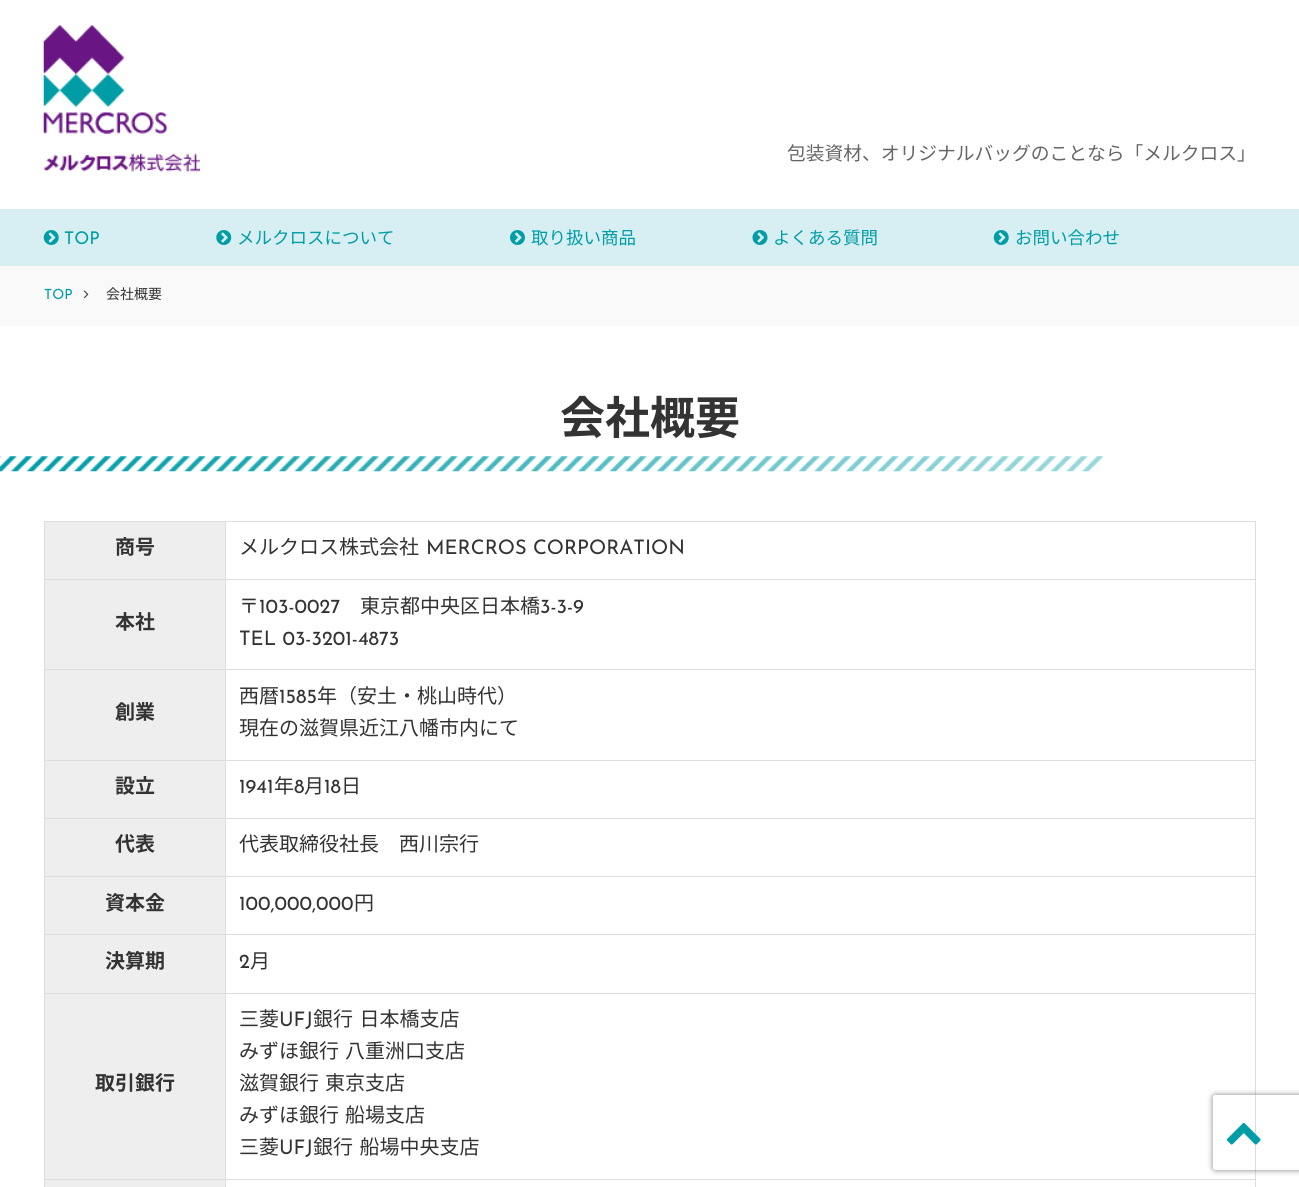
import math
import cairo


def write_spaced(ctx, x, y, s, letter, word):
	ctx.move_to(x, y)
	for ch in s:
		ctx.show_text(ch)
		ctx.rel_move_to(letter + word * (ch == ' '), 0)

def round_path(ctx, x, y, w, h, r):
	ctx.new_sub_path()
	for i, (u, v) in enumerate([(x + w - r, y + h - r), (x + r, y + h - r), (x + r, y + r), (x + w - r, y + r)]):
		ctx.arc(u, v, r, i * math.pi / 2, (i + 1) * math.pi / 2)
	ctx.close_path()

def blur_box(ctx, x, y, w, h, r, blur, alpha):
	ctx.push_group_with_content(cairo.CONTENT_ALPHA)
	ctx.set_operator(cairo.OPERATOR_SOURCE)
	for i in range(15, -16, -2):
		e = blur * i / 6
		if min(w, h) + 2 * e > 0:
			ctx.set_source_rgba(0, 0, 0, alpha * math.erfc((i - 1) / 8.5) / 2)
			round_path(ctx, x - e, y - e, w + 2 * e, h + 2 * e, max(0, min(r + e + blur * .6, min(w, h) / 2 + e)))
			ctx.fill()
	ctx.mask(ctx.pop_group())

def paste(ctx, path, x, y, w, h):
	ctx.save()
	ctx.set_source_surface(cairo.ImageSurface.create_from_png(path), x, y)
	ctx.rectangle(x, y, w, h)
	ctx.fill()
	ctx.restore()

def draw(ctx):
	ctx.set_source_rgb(1, 1, 1)
	ctx.paint()
	paste(ctx, 'media/1.png', 43, 25, 157, 147)
	ctx.select_font_face('Noto Sans JP')
	ctx.set_font_size(18.75)
	ctx.set_source_rgb(0.4, 0.4, 0.4)
	ctx.move_to(787, 160)
	ctx.show_text('包装資材、オリジナルバッグのことなら「メルクロス」')
	ctx.set_source_rgb(0.843, 0.933, 0.949)
	ctx.rectangle(0, 209, 1299, 57)
	ctx.fill()
	paste(ctx, 'media/2.png', 43, 230, 16, 15)
	ctx.select_font_face('Josefin Sans Thin')
	ctx.set_font_size(17.5)
	ctx.set_source_rgb(0, 0.616, 0.651)
	ctx.move_to(64, 244)
	ctx.show_text('TOP')
	paste(ctx, 'media/3.png', 216, 230, 16, 15)
	ctx.select_font_face('Noto Sans JP')
	ctx.move_to(237, 244)
	ctx.show_text('メルクロスについて')
	paste(ctx, 'media/4.png', 510, 230, 15, 15)
	ctx.move_to(531, 244)
	ctx.show_text('取り扱い商品')
	paste(ctx, 'media/5.png', 752, 230, 16, 15)
	ctx.move_to(773, 244)
	ctx.show_text('よくある質問')
	paste(ctx, 'media/2.png', 993, 230, 16, 15)
	ctx.move_to(1015, 244)
	ctx.show_text('お問い合わせ')
	ctx.set_source_rgb(0.976, 0.976, 0.976)
	ctx.rectangle(0, 266, 1299, 60)
	ctx.fill()
	ctx.select_font_face('Josefin Sans Thin')
	ctx.set_font_size(14)
	ctx.set_source_rgb(0, 0.616, 0.651)
	ctx.move_to(44, 299)
	ctx.show_text('TOP')
	paste(ctx, 'media/6.png', 83, 290, 6, 9)
	ctx.select_font_face('Noto Sans JP')
	ctx.set_source_rgb(0.2, 0.2, 0.2)
	ctx.move_to(106, 299)
	ctx.show_text('会社概要')
	paste(ctx, 'media/7.png', 0, 456, 1104, 16)
	ctx.select_font_face('Noto Sans JP', cairo.FONT_SLANT_NORMAL, cairo.FONT_WEIGHT_BOLD)
	ctx.set_font_size(45)
	ctx.move_to(560, 434)
	ctx.show_text('会社概要')
	ctx.set_source_rgb(0.867, 0.867, 0.867)
	ctx.rectangle(44, 521, 1212, 1)
	ctx.rectangle(44, 521, 1, 666)
	ctx.fill()
	ctx.set_source_rgb(0.933, 0.933, 0.933)
	ctx.rectangle(45, 1180, 181, 7)
	ctx.fill()
	ctx.set_source_rgb(0.867, 0.867, 0.867)
	ctx.rectangle(225, 1179, 1, 8)
	ctx.rectangle(1255, 521, 1, 666)
	ctx.fill()
	ctx.set_source_rgb(0.933, 0.933, 0.933)
	ctx.rectangle(45, 522, 180, 57)
	ctx.fill()
	ctx.set_source_rgb(0.867, 0.867, 0.867)
	ctx.rectangle(225, 1179, 1031, 1)
	ctx.rectangle(225, 993, 1, 187)
	ctx.rectangle(225, 993, 1031, 1)
	ctx.rectangle(225, 934, 1, 60)
	ctx.rectangle(225, 934, 1031, 1)
	ctx.rectangle(225, 876, 1, 59)
	ctx.rectangle(225, 876, 1031, 1)
	ctx.rectangle(225, 818, 1, 60)
	ctx.rectangle(225, 818, 1031, 1)
	ctx.rectangle(225, 760, 1, 59)
	ctx.rectangle(225, 760, 1031, 1)
	ctx.rectangle(225, 669, 1, 92)
	ctx.rectangle(225, 669, 1031, 1)
	ctx.rectangle(225, 579, 1, 91)
	ctx.rectangle(225, 579, 1031, 1)
	ctx.rectangle(225, 521, 1, 59)
	ctx.rectangle(44, 579, 182, 1)
	ctx.fill()
	ctx.set_font_size(20)
	ctx.set_source_rgb(0.2, 0.2, 0.2)
	ctx.move_to(115, 554)
	ctx.show_text('商号')
	ctx.select_font_face('Noto Sans JP')
	ctx.move_to(239, 554)
	ctx.show_text('メルクロス株式会社')
	ctx.select_font_face('Josefin Sans Thin')
	ctx.move_to(426, 554)
	ctx.show_text('MERCROS CORPORATION')
	ctx.set_source_rgb(0.933, 0.933, 0.933)
	ctx.rectangle(45, 580, 180, 89)
	ctx.fill()
	ctx.set_source_rgb(0.867, 0.867, 0.867)
	ctx.rectangle(44, 669, 182, 1)
	ctx.fill()
	ctx.select_font_face('Noto Sans JP', cairo.FONT_SLANT_NORMAL, cairo.FONT_WEIGHT_BOLD)
	ctx.set_source_rgb(0.2, 0.2, 0.2)
	ctx.move_to(115, 629)
	ctx.show_text('本社')
	ctx.select_font_face('Noto Sans JP')
	ctx.move_to(239, 613)
	ctx.show_text('〒')
	ctx.select_font_face('Josefin Sans Thin')
	ctx.move_to(259, 613)
	ctx.show_text('103-0027')
	ctx.select_font_face('Noto Sans JP')
	ctx.move_to(360, 613)
	ctx.show_text('東京都中央区日本橋')
	ctx.select_font_face('Josefin Sans Thin')
	ctx.move_to(540, 613)
	ctx.show_text('3-3-9')
	ctx.move_to(239, 645)
	ctx.show_text('TEL 03-3201-4873')
	ctx.set_source_rgb(0.933, 0.933, 0.933)
	ctx.rectangle(45, 670, 180, 90)
	ctx.fill()
	ctx.set_source_rgb(0.867, 0.867, 0.867)
	ctx.rectangle(44, 760, 182, 1)
	ctx.fill()
	ctx.select_font_face('Noto Sans JP', cairo.FONT_SLANT_NORMAL, cairo.FONT_WEIGHT_BOLD)
	ctx.set_source_rgb(0.2, 0.2, 0.2)
	ctx.move_to(115, 719)
	ctx.show_text('創業')
	ctx.select_font_face('Noto Sans JP')
	ctx.move_to(239, 703)
	ctx.show_text('西暦')
	ctx.select_font_face('Josefin Sans Thin')
	ctx.move_to(279, 703)
	ctx.show_text('1585')
	ctx.select_font_face('Noto Sans JP')
	ctx.move_to(317, 703)
	ctx.show_text('年（安土・桃山時代）')
	ctx.move_to(239, 735)
	ctx.show_text('現在の滋賀県近江八幡市内にて')
	ctx.set_source_rgb(0.933, 0.933, 0.933)
	ctx.rectangle(45, 761, 180, 57)
	ctx.fill()
	ctx.set_source_rgb(0.867, 0.867, 0.867)
	ctx.rectangle(44, 818, 182, 1)
	ctx.fill()
	ctx.select_font_face('Noto Sans JP', cairo.FONT_SLANT_NORMAL, cairo.FONT_WEIGHT_BOLD)
	ctx.set_source_rgb(0.2, 0.2, 0.2)
	ctx.move_to(115, 793)
	ctx.show_text('設立')
	ctx.select_font_face('Josefin Sans Thin')
	ctx.move_to(239, 793)
	ctx.show_text('1941')
	ctx.select_font_face('Noto Sans JP')
	ctx.move_to(274, 793)
	ctx.show_text('年')
	ctx.select_font_face('Josefin Sans Thin')
	ctx.move_to(294, 793)
	ctx.show_text('8')
	ctx.select_font_face('Noto Sans JP')
	ctx.move_to(304, 793)
	ctx.show_text('月')
	ctx.select_font_face('Josefin Sans Thin')
	ctx.move_to(324, 793)
	ctx.show_text('18')
	ctx.select_font_face('Noto Sans JP')
	ctx.move_to(341, 793)
	ctx.show_text('日')
	ctx.set_source_rgb(0.933, 0.933, 0.933)
	ctx.rectangle(45, 819, 180, 57)
	ctx.fill()
	ctx.set_source_rgb(0.867, 0.867, 0.867)
	ctx.rectangle(44, 876, 182, 1)
	ctx.fill()
	ctx.select_font_face('Noto Sans JP', cairo.FONT_SLANT_NORMAL, cairo.FONT_WEIGHT_BOLD)
	ctx.set_source_rgb(0.2, 0.2, 0.2)
	ctx.move_to(115, 851)
	ctx.show_text('代表')
	ctx.select_font_face('Noto Sans JP')
	ctx.move_to(239, 851)
	ctx.show_text('代表取締役社長　西川宗行')
	ctx.set_source_rgb(0.933, 0.933, 0.933)
	ctx.rectangle(45, 877, 180, 57)
	ctx.fill()
	ctx.set_source_rgb(0.867, 0.867, 0.867)
	ctx.rectangle(44, 934, 182, 1)
	ctx.fill()
	ctx.select_font_face('Noto Sans JP', cairo.FONT_SLANT_NORMAL, cairo.FONT_WEIGHT_BOLD)
	ctx.set_source_rgb(0.2, 0.2, 0.2)
	ctx.move_to(105, 910)
	ctx.show_text('資本金')
	ctx.select_font_face('Josefin Sans Thin')
	ctx.move_to(239, 910)
	ctx.show_text('100,000,000')
	ctx.select_font_face('Noto Sans JP')
	ctx.move_to(354, 910)
	ctx.show_text('円')
	ctx.set_source_rgb(0.933, 0.933, 0.933)
	ctx.rectangle(45, 935, 180, 58)
	ctx.fill()
	ctx.set_source_rgb(0.867, 0.867, 0.867)
	ctx.rectangle(44, 993, 182, 1)
	ctx.fill()
	ctx.select_font_face('Noto Sans JP', cairo.FONT_SLANT_NORMAL, cairo.FONT_WEIGHT_BOLD)
	ctx.set_source_rgb(0.2, 0.2, 0.2)
	ctx.move_to(105, 968)
	ctx.show_text('決算期')
	ctx.select_font_face('Josefin Sans Thin')
	ctx.move_to(239, 968)
	ctx.show_text('2')
	ctx.select_font_face('Noto Sans JP')
	ctx.move_to(250, 968)
	ctx.show_text('月')
	ctx.set_source_rgb(0.933, 0.933, 0.933)
	ctx.rectangle(45, 994, 180, 185)
	ctx.fill()
	ctx.set_source_rgb(0.867, 0.867, 0.867)
	ctx.rectangle(44, 1179, 182, 1)
	ctx.fill()
	ctx.select_font_face('Noto Sans JP', cairo.FONT_SLANT_NORMAL, cairo.FONT_WEIGHT_BOLD)
	ctx.set_source_rgb(0.2, 0.2, 0.2)
	ctx.move_to(95, 1090)
	ctx.show_text('取引銀行')
	ctx.select_font_face('Noto Sans JP')
	ctx.move_to(239, 1026)
	ctx.show_text('三菱')
	ctx.select_font_face('Josefin Sans Thin')
	ctx.move_to(279, 1026)
	ctx.show_text('UFJ')
	ctx.select_font_face('Noto Sans JP')
	write_spaced(ctx, 313, 1026, '銀行 日本橋支店', 0, 2)
	for x, y, s in [
		(239, 1058, 'みずほ銀行'),
		(345, 1058, '八重洲口支店'),
		(239, 1090, '滋賀銀行'),
		(325, 1090, '東京支店'),
		(239, 1122, 'みずほ銀行'),
		(345, 1122, '船場支店'),
		(239, 1154, '三菱'),
	]:
		ctx.move_to(x, y)
		ctx.show_text(s)
	ctx.select_font_face('Josefin Sans Thin')
	ctx.move_to(279, 1154)
	ctx.show_text('UFJ')
	ctx.select_font_face('Noto Sans JP')
	write_spaced(ctx, 313, 1154, '銀行 船場中央支店', 0, 2)
	paste(ctx, 'media/8.png', 1226, 1122, 35, 23)
	ctx.save()
	ctx.set_fill_rule(cairo.FILL_RULE_EVEN_ODD)
	ctx.new_path()
	ctx.move_to(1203, 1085)
	ctx.line_to(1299, 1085)
	ctx.line_to(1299, 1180)
	ctx.line_to(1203, 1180)
	ctx.close_path()
	ctx.move_to(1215.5, 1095)
	ctx.line_to(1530.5, 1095)
	ctx.curve_to(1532, 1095, 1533, 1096, 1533, 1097.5)
	ctx.line_to(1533, 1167.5)
	ctx.curve_to(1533, 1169, 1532, 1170, 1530.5, 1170)
	ctx.line_to(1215.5, 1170)
	ctx.curve_to(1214, 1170, 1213, 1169, 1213, 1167.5)
	ctx.line_to(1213, 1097.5)
	ctx.curve_to(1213, 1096, 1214, 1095, 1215.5, 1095)
	ctx.close_path()
	ctx.clip()
	ctx.set_source_rgb(0.502, 0.502, 0.502)
	blur_box(ctx, 1213, 1095, 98, 75, 2.5, 3, 1)
	ctx.restore()


surface = cairo.ImageSurface(cairo.FORMAT_RGB24, 1299, 1187)
ctx = cairo.Context(surface)
options = cairo.FontOptions()
options.set_hint_metrics(cairo.HINT_METRICS_OFF)
options.set_hint_style(cairo.HINT_STYLE_NONE)
ctx.set_font_options(options)
ctx.set_miter_limit(4)
draw(ctx)
surface.write_to_png('image.png')
